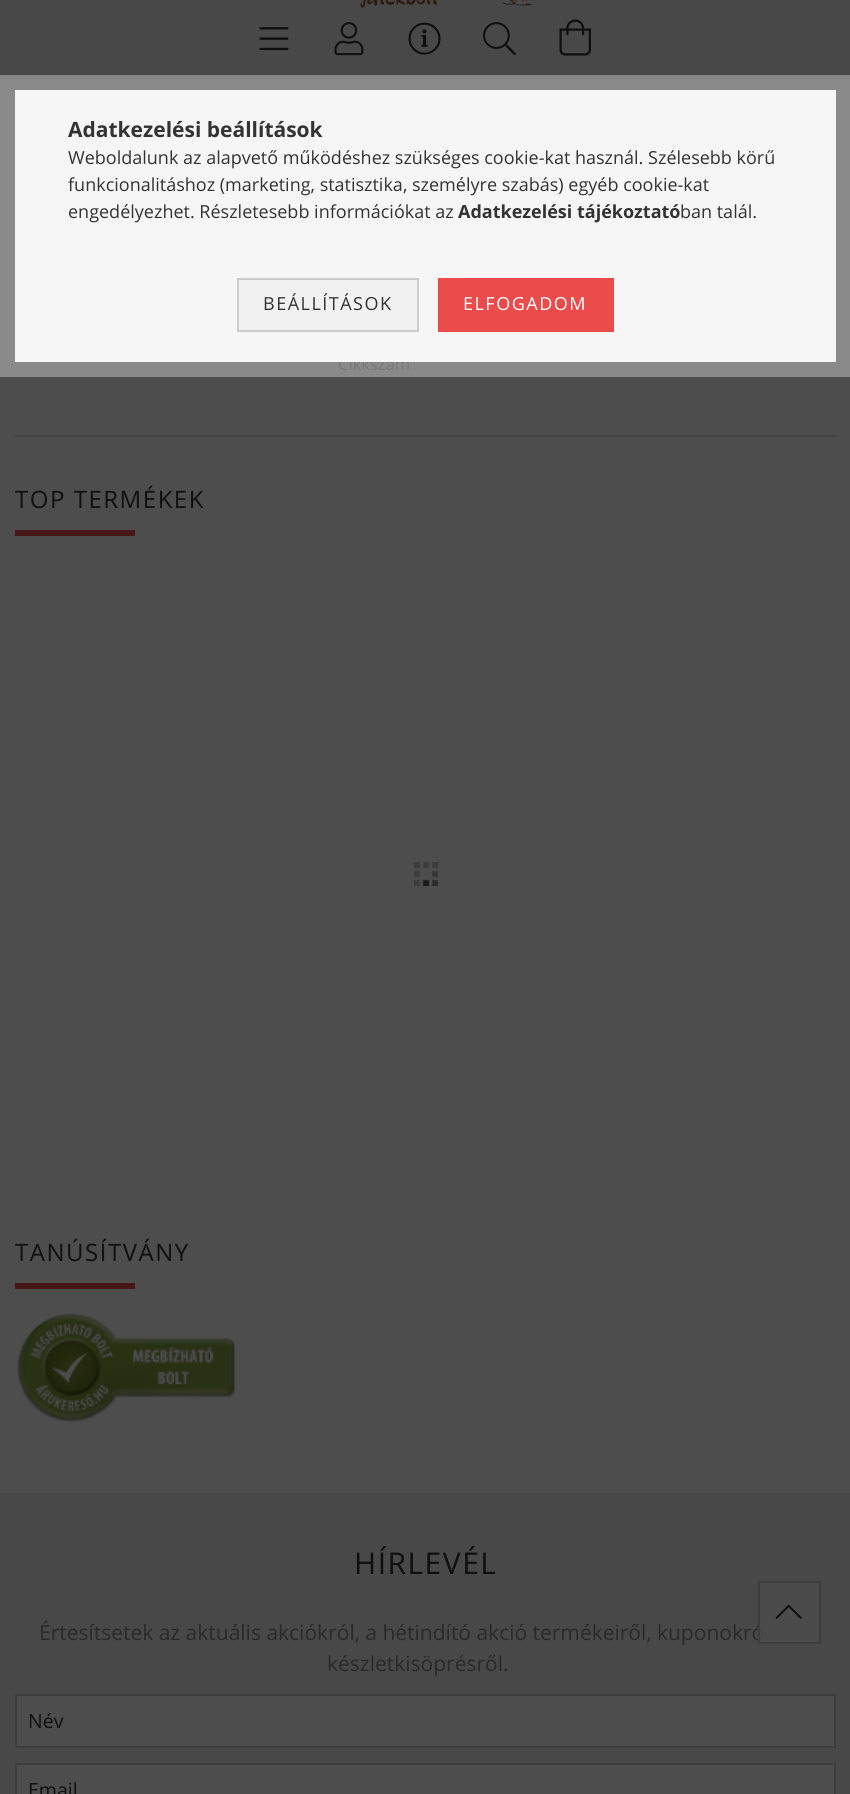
import math
import cairo


def write_spaced(ctx, x, y, s, letter, word):
	ctx.move_to(x, y)
	for ch in s:
		ctx.show_text(ch)
		ctx.rel_move_to(letter + word * (ch == ' '), 0)

def round_path(ctx, x, y, w, h, r):
	ctx.new_sub_path()
	for i, (u, v) in enumerate([(x + w - r, y + h - r), (x + r, y + h - r), (x + r, y + r), (x + w - r, y + r)]):
		ctx.arc(u, v, r, i * math.pi / 2, (i + 1) * math.pi / 2)
	ctx.close_path()

def blur_box(ctx, x, y, w, h, r, blur, alpha):
	ctx.push_group_with_content(cairo.CONTENT_ALPHA)
	ctx.set_operator(cairo.OPERATOR_SOURCE)
	for i in range(15, -16, -2):
		e = blur * i / 6
		if min(w, h) + 2 * e > 0:
			ctx.set_source_rgba(0, 0, 0, alpha * math.erfc((i - 1) / 8.5) / 2)
			round_path(ctx, x - e, y - e, w + 2 * e, h + 2 * e, max(0, min(r + e + blur * .6, min(w, h) / 2 + e)))
			ctx.fill()
	ctx.mask(ctx.pop_group())

def paste(ctx, path, x, y, w, h):
	ctx.save()
	ctx.set_source_surface(cairo.ImageSurface.create_from_png(path), x, y)
	ctx.rectangle(x, y, w, h)
	ctx.fill()
	ctx.restore()

def draw(ctx):
	ctx.set_source_rgb(0.302, 0.302, 0.302)
	ctx.paint()
	ctx.set_source_rgb(0, 0, 0)
	blur_box(ctx, 0, -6, 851, 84, 0, 2, 0.2)
	ctx.select_font_face('Open Sans')
	ctx.set_font_size(16.5)
	ctx.set_source_rgb(0.161, 0.161, 0.161)
	ctx.move_to(338, 370)
	ctx.show_text('Cikkszám')
	ctx.rectangle(7.5, 82.5, 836, 287)
	ctx.set_source_rgba(0.784, 0.784, 0.784, 0.5)
	ctx.set_line_width(15)
	ctx.stroke()
	ctx.set_source_rgb(0.961, 0.961, 0.961)
	ctx.rectangle(15, 90, 821, 272)
	ctx.fill()
	ctx.select_font_face('Open Sans', cairo.FONT_SLANT_NORMAL, cairo.FONT_WEIGHT_BOLD)
	ctx.set_font_size(21)
	ctx.set_source_rgb(0.2, 0.2, 0.2)
	ctx.move_to(68, 137)
	ctx.show_text('Adatkezelési beállítások')
	ctx.select_font_face('Open Sans')
	ctx.set_font_size(18)
	for x, y, s in [
		(68, 164, 'Weboldalunk az alapvető működéshez szükséges cookie-kat használ. Szélesebb körű'),
		(68, 191, 'funkcionalitáshoz (marketing, statisztika, személyre szabás) egyéb cookie-kat'),
		(68, 218, 'engedélyezhet. Részletesebb információkat az'),
	]:
		ctx.move_to(x, y)
		ctx.show_text(s)
	ctx.select_font_face('Open Sans', cairo.FONT_SLANT_NORMAL, cairo.FONT_WEIGHT_BOLD)
	ctx.move_to(458, 218)
	ctx.show_text('Adatkezelési tájékoztató')
	ctx.select_font_face('Open Sans')
	ctx.move_to(680, 218)
	ctx.show_text('ban talál.')
	ctx.set_source_rgb(0.945, 0.945, 0.945)
	ctx.rectangle(238, 279, 180, 52)
	ctx.fill_preserve()
	ctx.set_source_rgb(0.8, 0.8, 0.8)
	ctx.set_line_width(2)
	ctx.stroke()
	ctx.set_source_rgb(0.2, 0.2, 0.2)
	write_spaced(ctx, 263, 310, 'BEÁLLÍTÁSOK', 1.5, 0)
	ctx.set_source_rgb(0.925, 0.294, 0.294)
	ctx.rectangle(438, 278, 176, 54)
	ctx.fill()
	ctx.set_source_rgb(1, 1, 1)
	write_spaced(ctx, 463, 310, 'ELFOGADOM', 1.5, 0)
	ctx.set_source_rgb(0.282, 0.282, 0.282)
	ctx.rectangle(0, 0, 850, 75)
	ctx.fill()
	paste(ctx, 'media/1.png', 360, 0, 172, 8)
	paste(ctx, 'media/2.png', 259, 27, 30, 24)
	paste(ctx, 'media/3.png', 334, 22, 30, 34)
	paste(ctx, 'media/4.png', 408, 22, 33, 33)
	paste(ctx, 'media/5.png', 483, 22, 33, 34)
	paste(ctx, 'media/6.png', 559, 19, 32, 37)
	ctx.set_source_rgb(0.259, 0.259, 0.259)
	ctx.rectangle(15, 435, 821, 2)
	ctx.fill()
	ctx.set_font_size(24)
	ctx.set_source_rgb(0.059, 0.059, 0.059)
	write_spaced(ctx, 15, 508, 'TOP TERMÉKEK', 1.5, 0)
	ctx.set_source_rgb(0.278, 0.09, 0.09)
	ctx.rectangle(15, 530, 120, 6)
	ctx.fill()
	paste(ctx, 'media/7.png', 414, 862, 24, 24)
	ctx.set_source_rgb(0.059, 0.059, 0.059)
	write_spaced(ctx, 15, 1261, 'TANÚSÍTVÁNY', 1.5, 0)
	ctx.set_source_rgb(0.278, 0.09, 0.09)
	ctx.rectangle(15, 1283, 120, 6)
	ctx.fill()
	paste(ctx, 'media/8.png', 16, 1313, 220, 110)
	ctx.set_source_rgb(0.282, 0.282, 0.282)
	ctx.rectangle(0, 1493, 850, 301)
	ctx.fill()
	ctx.set_font_size(30)
	ctx.set_source_rgb(0.059, 0.059, 0.059)
	write_spaced(ctx, 354, 1574, 'HÍRLEVÉL', 1.5, 0)
	ctx.set_font_size(21)
	ctx.set_source_rgb(0.161, 0.161, 0.161)
	ctx.move_to(39, 1640)
	ctx.show_text('Értesítsetek az aktuális akciókról, a hétindító akció termékeiről, kuponokró')
	ctx.move_to(327, 1671)
	ctx.show_text('készletkisöprésről.')
	ctx.set_source_rgb(0.302, 0.302, 0.302)
	ctx.rectangle(16, 1695, 819, 52)
	ctx.fill_preserve()
	ctx.set_source_rgb(0.239, 0.239, 0.239)
	ctx.stroke()
	ctx.set_font_size(19.5)
	ctx.set_source_rgb(0.059, 0.059, 0.059)
	ctx.move_to(28, 1728)
	ctx.show_text('Név')
	ctx.set_source_rgb(0.302, 0.302, 0.302)
	ctx.rectangle(16, 1764, 819, 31)
	ctx.fill_preserve()
	ctx.set_source_rgb(0.239, 0.239, 0.239)
	ctx.stroke()
	ctx.set_source_rgb(0.059, 0.059, 0.059)
	ctx.move_to(28, 1797)
	ctx.show_text('Email')
	ctx.set_source_rgba(0.302, 0.302, 0.302, 0.8)
	ctx.rectangle(759, 1582, 61, 61)
	ctx.fill_preserve()
	ctx.set_source_rgb(0.239, 0.239, 0.239)
	ctx.stroke()
	paste(ctx, 'media/9.png', 775, 1604, 27, 15)


surface = cairo.ImageSurface(cairo.FORMAT_RGB24, 850, 1794)
ctx = cairo.Context(surface)
options = cairo.FontOptions()
options.set_hint_metrics(cairo.HINT_METRICS_OFF)
options.set_hint_style(cairo.HINT_STYLE_NONE)
ctx.set_font_options(options)
ctx.set_miter_limit(4)
draw(ctx)
surface.write_to_png('image.png')
